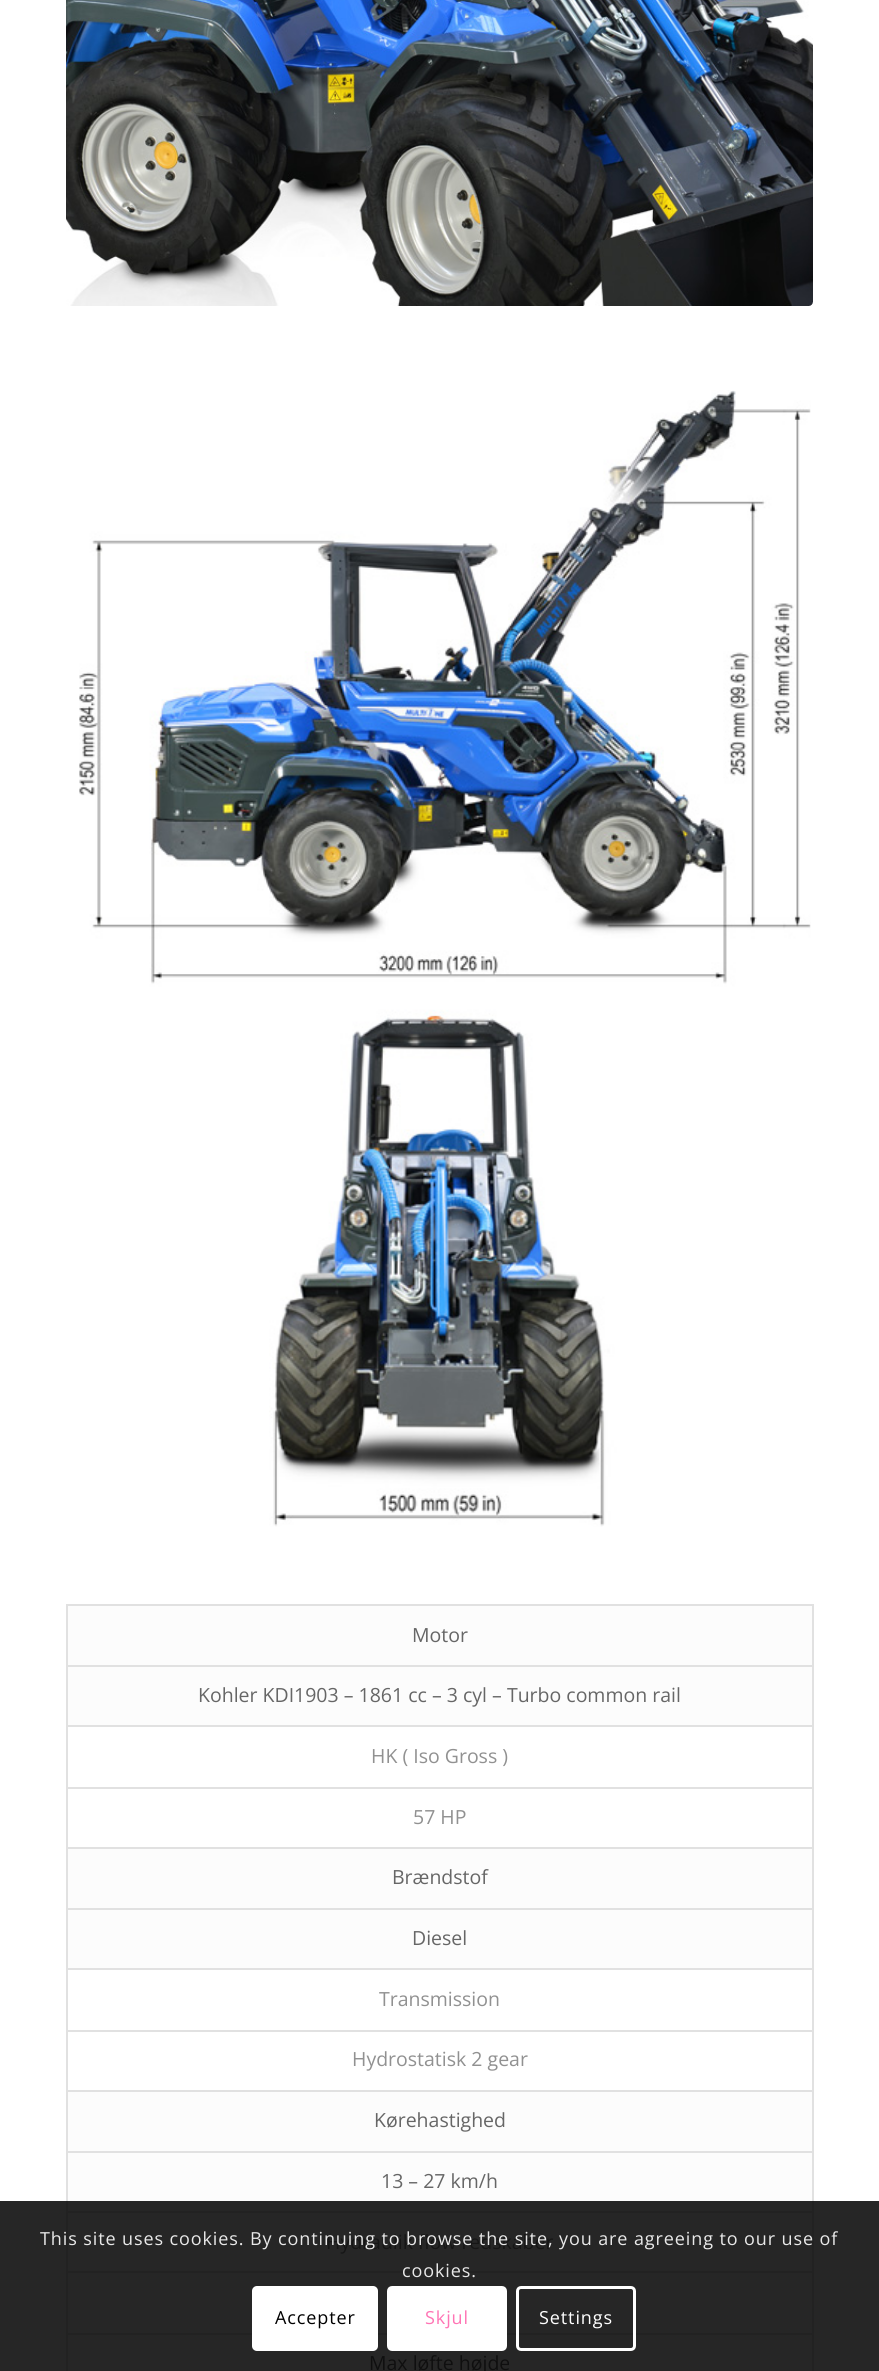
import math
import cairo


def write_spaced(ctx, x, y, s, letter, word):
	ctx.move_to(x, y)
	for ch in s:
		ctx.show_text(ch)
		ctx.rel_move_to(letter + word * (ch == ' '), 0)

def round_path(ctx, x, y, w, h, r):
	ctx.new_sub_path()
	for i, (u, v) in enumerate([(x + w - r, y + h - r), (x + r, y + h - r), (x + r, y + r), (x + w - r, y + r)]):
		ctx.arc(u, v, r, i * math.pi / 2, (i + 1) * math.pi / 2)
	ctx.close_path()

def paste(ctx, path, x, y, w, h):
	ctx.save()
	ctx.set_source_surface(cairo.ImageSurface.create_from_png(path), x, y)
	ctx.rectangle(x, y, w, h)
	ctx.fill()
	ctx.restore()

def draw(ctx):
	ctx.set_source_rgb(1, 1, 1)
	ctx.paint()
	ctx.set_source_rgb(0.149, 0.149, 0.149)
	ctx.rectangle(0, 2201, 879, 170)
	ctx.fill()
	paste(ctx, 'media/1.png', 66, 0, 747, 306)
	paste(ctx, 'media/2.png', 79, 390, 732, 1137)
	ctx.set_source_rgb(0.988, 0.988, 0.988)
	ctx.rectangle(68, 1606, 744, 595)
	ctx.fill()
	ctx.set_source_rgb(0.882, 0.882, 0.882)
	ctx.rectangle(66, 1604, 747, 2)
	ctx.rectangle(812, 1604, 2, 597)
	ctx.fill()
	ctx.set_source_rgb(0.133, 0.133, 0.133)
	ctx.rectangle(812, 2201, 2, 170)
	ctx.fill()
	ctx.set_source_rgb(0.882, 0.882, 0.882)
	ctx.rectangle(66, 1604, 2, 597)
	ctx.fill()
	ctx.set_source_rgb(0.133, 0.133, 0.133)
	ctx.rectangle(66, 2201, 2, 170)
	ctx.fill()
	ctx.set_source_rgb(0.882, 0.882, 0.882)
	ctx.rectangle(68, 1665, 744, 2)
	ctx.fill()
	ctx.select_font_face('Open Sans')
	ctx.set_font_size(19.5)
	ctx.set_source_rgb(0.4, 0.4, 0.4)
	ctx.move_to(412, 1642)
	ctx.show_text('Motor')
	ctx.set_source_rgb(0.882, 0.882, 0.882)
	ctx.rectangle(68, 1725, 744, 2)
	ctx.fill()
	ctx.set_source_rgb(0.4, 0.4, 0.4)
	ctx.move_to(198, 1702)
	ctx.show_text('Kohler KDI1903 – 1861 cc – 3 cyl – Turbo common rail')
	ctx.set_source_rgb(1, 1, 1)
	ctx.rectangle(68, 1727, 744, 120)
	ctx.fill()
	ctx.set_source_rgb(0.882, 0.882, 0.882)
	ctx.rectangle(68, 1787, 744, 2)
	ctx.fill()
	ctx.set_source_rgb(0.569, 0.569, 0.569)
	ctx.move_to(371, 1763)
	ctx.show_text('HK ( Iso Gross )')
	ctx.set_source_rgb(0.882, 0.882, 0.882)
	ctx.rectangle(68, 1847, 744, 2)
	ctx.fill()
	ctx.set_source_rgb(0.569, 0.569, 0.569)
	ctx.move_to(413, 1824)
	ctx.show_text('57 HP')
	ctx.set_source_rgb(0.882, 0.882, 0.882)
	ctx.rectangle(68, 1908, 744, 2)
	ctx.fill()
	ctx.set_source_rgb(0.4, 0.4, 0.4)
	ctx.move_to(392, 1884)
	ctx.show_text('Brændstof')
	ctx.set_source_rgb(0.882, 0.882, 0.882)
	ctx.rectangle(68, 1968, 744, 2)
	ctx.fill()
	ctx.set_source_rgb(0.4, 0.4, 0.4)
	ctx.move_to(412, 1945)
	ctx.show_text('Diesel')
	ctx.set_source_rgb(1, 1, 1)
	ctx.rectangle(68, 1970, 744, 120)
	ctx.fill()
	ctx.set_source_rgb(0.882, 0.882, 0.882)
	ctx.rectangle(68, 2030, 744, 2)
	ctx.fill()
	ctx.set_source_rgb(0.569, 0.569, 0.569)
	ctx.move_to(379, 2006)
	ctx.show_text('Transmission')
	ctx.set_source_rgb(0.882, 0.882, 0.882)
	ctx.rectangle(68, 2090, 744, 2)
	ctx.fill()
	ctx.set_source_rgb(0.569, 0.569, 0.569)
	ctx.move_to(352, 2066)
	ctx.show_text('Hydrostatisk 2 gear')
	ctx.set_source_rgb(0.882, 0.882, 0.882)
	ctx.rectangle(68, 2151, 744, 2)
	ctx.fill()
	ctx.set_source_rgb(0.4, 0.4, 0.4)
	ctx.move_to(374, 2127)
	ctx.show_text('Kørehastighed')
	ctx.set_source_rgb(0.133, 0.133, 0.133)
	ctx.rectangle(68, 2211, 744, 2)
	ctx.fill()
	ctx.set_source_rgb(0.4, 0.4, 0.4)
	ctx.move_to(381, 2188)
	ctx.show_text('13 – 27 km/h')
	ctx.set_source_rgb(0.133, 0.133, 0.133)
	ctx.rectangle(68, 2271, 744, 2)
	ctx.fill()
	ctx.set_source_rgb(0.086, 0.086, 0.086)
	ctx.move_to(326, 2249)
	ctx.show_text('Hydraulik flow redskaber')
	ctx.set_source_rgb(0.133, 0.133, 0.133)
	ctx.rectangle(68, 2333, 744, 2)
	ctx.fill()
	ctx.set_source_rgb(0.059, 0.059, 0.059)
	ctx.move_to(369, 2370)
	ctx.show_text('Max løfte højde')
	ctx.set_font_size(18)
	ctx.set_source_rgb(0.914, 0.914, 0.914)
	write_spaced(ctx, 40, 2245, 'This site uses cookies. By continuing to browse the site, you are agreeing to our use of', 0.9, 0)
	write_spaced(ctx, 402, 2277, 'cookies.', 0.9, 0)
	ctx.set_source_rgb(1, 1, 1)
	round_path(ctx, 252, 2286, 126, 65, 5)
	ctx.fill()
	ctx.set_source_rgb(0, 0, 0)
	write_spaced(ctx, 275, 2324, 'Accepter', 0.9, 0)
	ctx.set_source_rgb(1, 1, 1)
	round_path(ctx, 388.5, 2287.5, 117, 62, 3.5)
	ctx.fill_preserve()
	ctx.set_line_width(3)
	ctx.stroke()
	ctx.set_source_rgb(1, 0.459, 0.71)
	write_spaced(ctx, 425, 2324, 'Skjul', 0.9, 0)
	round_path(ctx, 517.5, 2287.5, 117, 62, 3.5)
	ctx.set_source_rgb(1, 1, 1)
	ctx.stroke()
	write_spaced(ctx, 539, 2324, 'Settings', 0.9, 0)


surface = cairo.ImageSurface(cairo.FORMAT_RGB24, 879, 2371)
ctx = cairo.Context(surface)
options = cairo.FontOptions()
options.set_hint_metrics(cairo.HINT_METRICS_OFF)
options.set_hint_style(cairo.HINT_STYLE_NONE)
ctx.set_font_options(options)
ctx.set_miter_limit(4)
draw(ctx)
surface.write_to_png('image.png')
